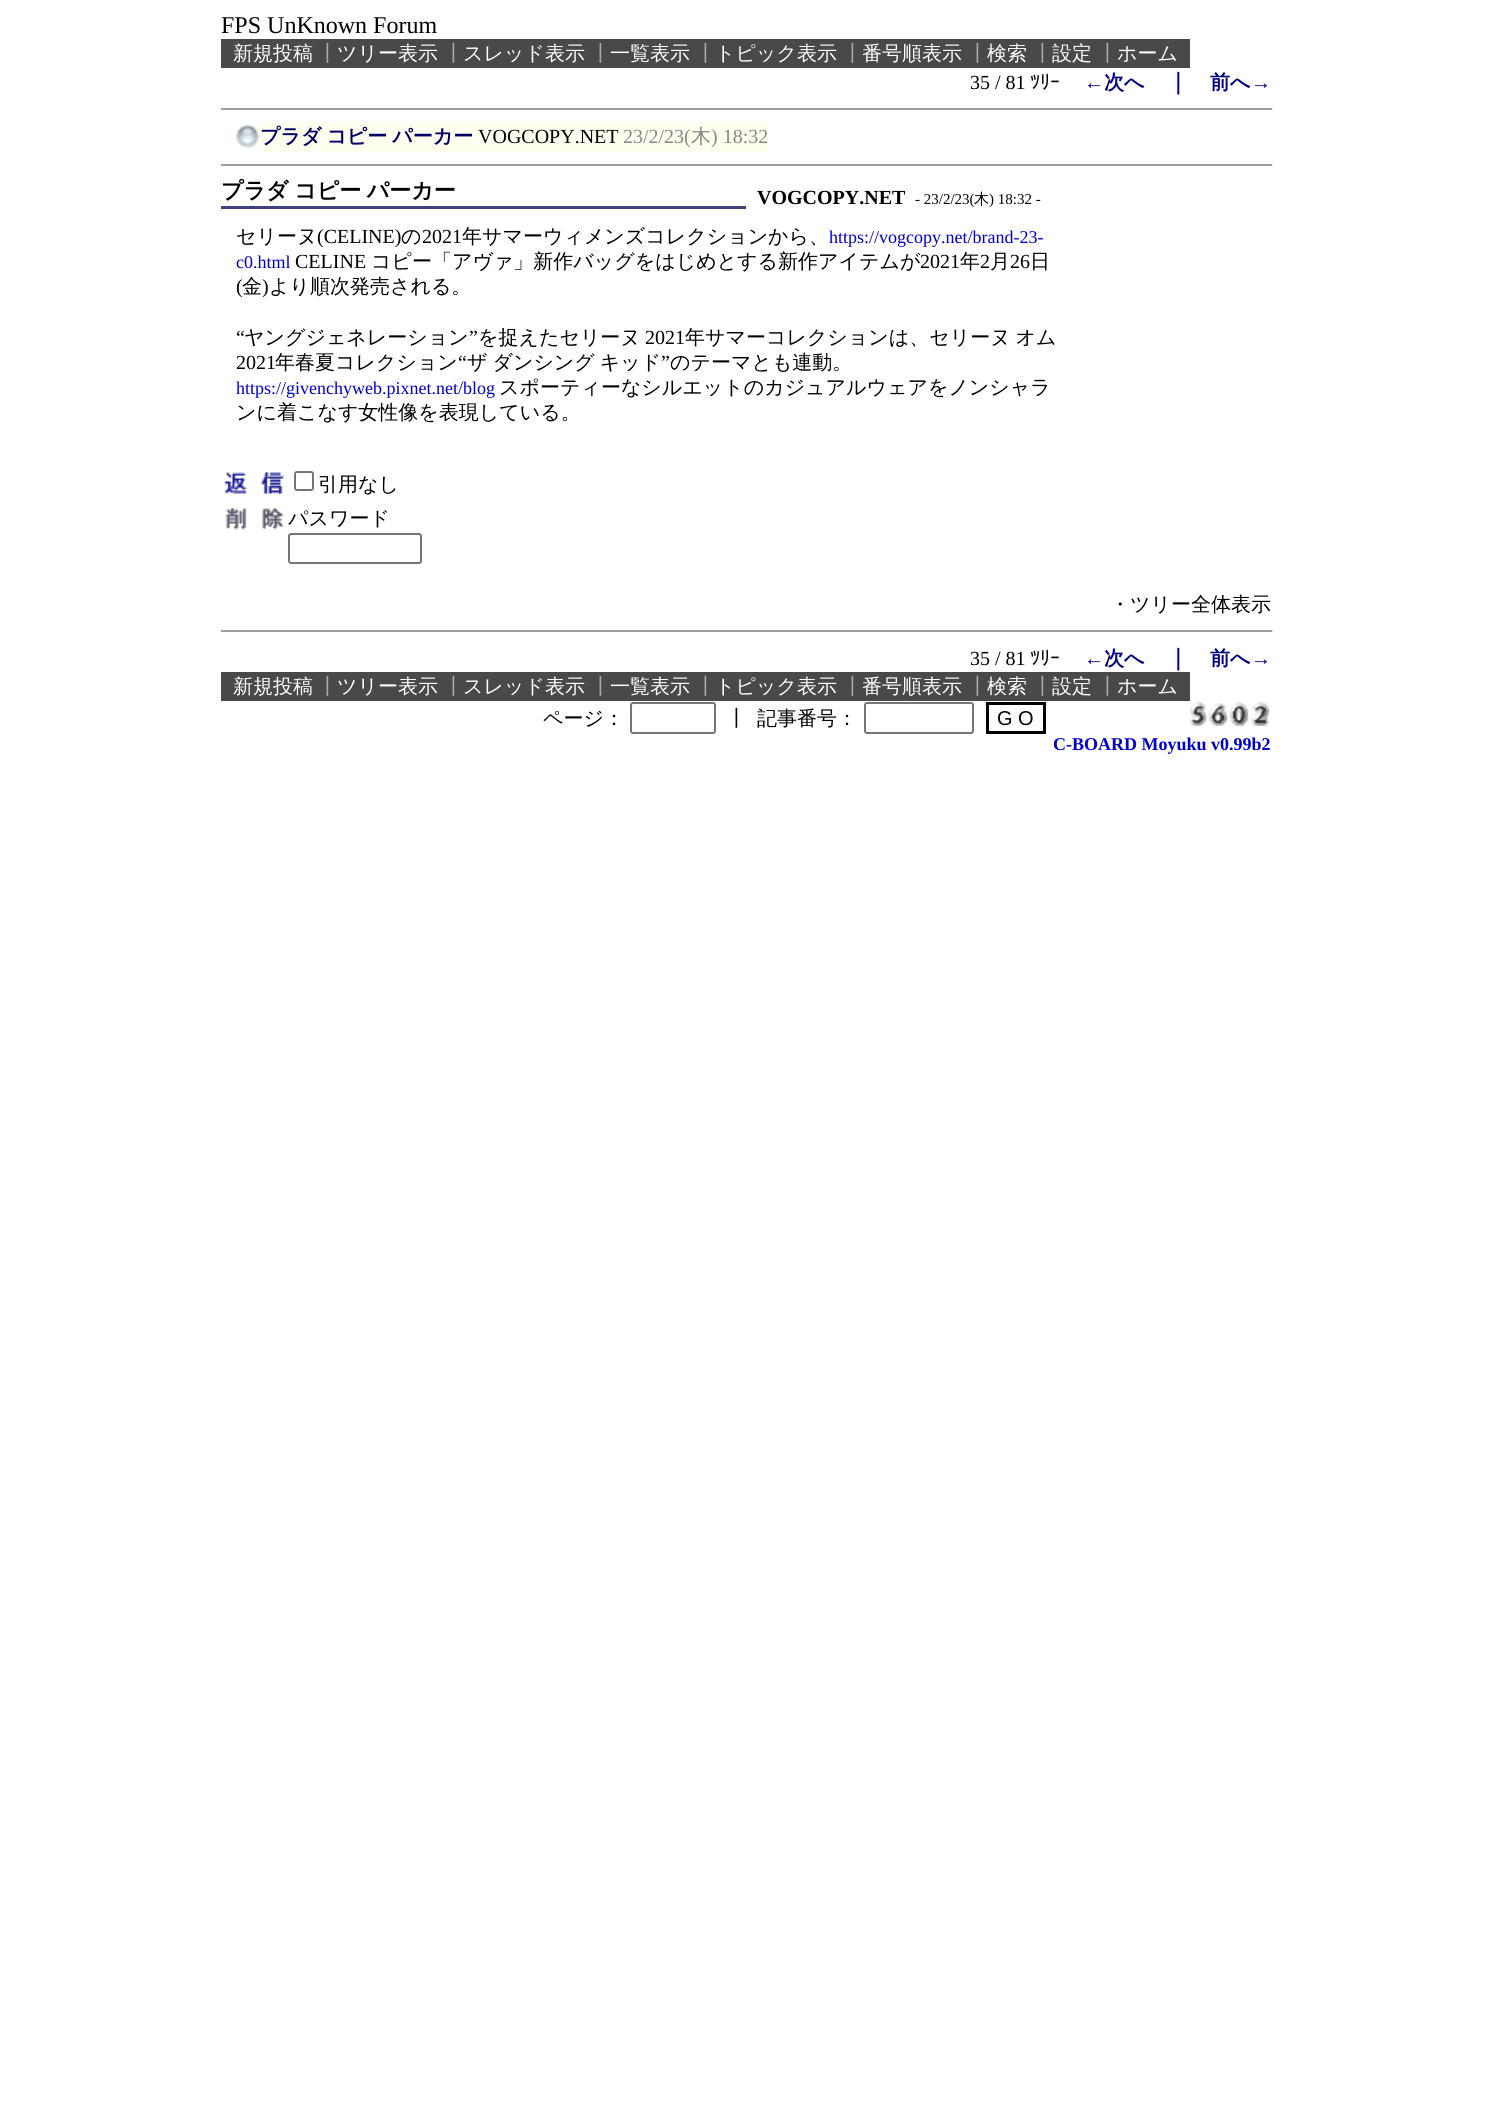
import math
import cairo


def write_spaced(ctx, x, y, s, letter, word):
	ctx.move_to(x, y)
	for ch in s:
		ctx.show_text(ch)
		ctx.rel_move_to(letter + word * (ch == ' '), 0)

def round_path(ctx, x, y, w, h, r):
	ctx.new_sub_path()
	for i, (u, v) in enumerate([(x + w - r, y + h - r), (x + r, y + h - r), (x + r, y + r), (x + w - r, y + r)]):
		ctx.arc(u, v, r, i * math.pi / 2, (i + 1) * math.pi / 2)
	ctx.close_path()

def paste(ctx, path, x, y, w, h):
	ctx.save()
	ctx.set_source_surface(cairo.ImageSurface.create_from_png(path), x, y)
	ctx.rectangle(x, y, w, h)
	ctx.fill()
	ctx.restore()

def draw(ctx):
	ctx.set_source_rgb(1, 1, 1)
	ctx.paint()
	ctx.select_font_face('Liberation Serif')
	ctx.set_font_size(24)
	ctx.set_source_rgb(0, 0, 0)
	ctx.move_to(221, 33)
	ctx.show_text('FPS UnKnown Forum')
	ctx.set_source_rgb(0.286, 0.286, 0.286)
	ctx.rectangle(221, 39, 969, 29)
	ctx.fill()
	ctx.select_font_face('WenQuanYi Zen Hei Medium')
	ctx.set_font_size(20)
	ctx.set_source_rgb(1, 1, 1)
	ctx.move_to(233, 60)
	ctx.show_text('新規投稿')
	ctx.set_source_rgb(0.667, 0.667, 0.667)
	ctx.move_to(317, 60)
	ctx.show_text('┃')
	ctx.set_source_rgb(1, 1, 1)
	ctx.move_to(337, 60)
	ctx.show_text('ツリー表示')
	ctx.set_source_rgb(0.667, 0.667, 0.667)
	ctx.move_to(443, 60)
	ctx.show_text('┃')
	ctx.set_source_rgb(1, 1, 1)
	ctx.move_to(463, 60)
	ctx.show_text('スレッド表示')
	ctx.set_source_rgb(0.667, 0.667, 0.667)
	ctx.move_to(590, 60)
	ctx.show_text('┃')
	ctx.set_source_rgb(1, 1, 1)
	ctx.move_to(610, 60)
	ctx.show_text('一覧表示')
	ctx.set_source_rgb(0.667, 0.667, 0.667)
	ctx.move_to(695, 60)
	ctx.show_text('┃')
	ctx.set_source_rgb(1, 1, 1)
	ctx.move_to(715, 60)
	ctx.show_text('トピック表示')
	ctx.set_source_rgb(0.667, 0.667, 0.667)
	ctx.move_to(842, 60)
	ctx.show_text('┃')
	ctx.set_source_rgb(1, 1, 1)
	ctx.move_to(862, 60)
	ctx.show_text('番号順表示')
	ctx.set_source_rgb(0.667, 0.667, 0.667)
	ctx.move_to(967, 60)
	ctx.show_text('┃')
	ctx.set_source_rgb(1, 1, 1)
	ctx.move_to(987, 60)
	ctx.show_text('検索')
	ctx.set_source_rgb(0.667, 0.667, 0.667)
	ctx.move_to(1032, 60)
	ctx.show_text('┃')
	ctx.set_source_rgb(1, 1, 1)
	ctx.move_to(1052, 60)
	ctx.show_text('設定')
	ctx.set_source_rgb(0.667, 0.667, 0.667)
	ctx.move_to(1097, 60)
	ctx.show_text('┃')
	ctx.set_source_rgb(1, 1, 1)
	ctx.move_to(1117, 60)
	ctx.show_text('ホーム')
	ctx.select_font_face('Liberation Serif')
	ctx.set_source_rgb(0, 0, 0)
	ctx.move_to(970, 89)
	ctx.show_text('35 / 81')
	ctx.select_font_face('IPAPGothic')
	ctx.move_to(1030, 89)
	ctx.show_text('ﾂﾘｰ')
	ctx.select_font_face('Liberation Serif', cairo.FONT_SLANT_NORMAL, cairo.FONT_WEIGHT_BOLD)
	ctx.set_source_rgb(0, 0, 0.502)
	ctx.move_to(1084, 89)
	ctx.show_text('←')
	ctx.select_font_face('WenQuanYi Zen Hei', cairo.FONT_SLANT_NORMAL, cairo.FONT_WEIGHT_BOLD)
	ctx.move_to(1104, 89)
	ctx.show_text('次へ')
	ctx.set_font_size(22)
	ctx.move_to(1167, 89)
	ctx.show_text('｜')
	ctx.set_font_size(20)
	ctx.move_to(1210, 89)
	ctx.show_text('前へ')
	ctx.select_font_face('Liberation Serif', cairo.FONT_SLANT_NORMAL, cairo.FONT_WEIGHT_BOLD)
	ctx.move_to(1251, 89)
	ctx.show_text('→')
	ctx.set_source_rgb(0.624, 0.624, 0.624)
	ctx.rectangle(221, 108, 1053, 2)
	ctx.fill()
	ctx.set_source_rgb(0.933, 0.933, 0.933)
	ctx.rectangle(1272, 108, 2, 2)
	ctx.fill()
	paste(ctx, 'media/1.png', 235, 124, 25, 25)
	ctx.set_source_rgb(1, 1, 0.941)
	ctx.rectangle(260, 122, 508, 30)
	ctx.fill()
	ctx.select_font_face('WenQuanYi Zen Hei', cairo.FONT_SLANT_NORMAL, cairo.FONT_WEIGHT_BOLD)
	ctx.set_source_rgb(0, 0, 0.4)
	write_spaced(ctx, 260, 143, 'プラダ コピー パーカー', 0, -1)
	ctx.select_font_face('Liberation Serif')
	ctx.set_source_rgb(0, 0, 0)
	ctx.move_to(478, 143)
	ctx.show_text('VOGCOPY.NET')
	ctx.set_source_rgb(0.533, 0.533, 0.533)
	ctx.move_to(623, 143)
	ctx.show_text('23/2/23(')
	ctx.select_font_face('WenQuanYi Zen Hei Medium')
	ctx.move_to(691, 143)
	ctx.show_text('木')
	ctx.select_font_face('Liberation Serif')
	ctx.move_to(711, 143)
	ctx.show_text(') 18:32')
	ctx.set_source_rgb(0.624, 0.624, 0.624)
	ctx.rectangle(221, 164, 1053, 2)
	ctx.fill()
	ctx.set_source_rgb(0.933, 0.933, 0.933)
	ctx.rectangle(1272, 164, 2, 2)
	ctx.fill()
	ctx.set_source_rgb(0.259, 0.259, 0.51)
	ctx.rectangle(221, 206, 525, 3)
	ctx.fill()
	ctx.select_font_face('WenQuanYi Zen Hei', cairo.FONT_SLANT_NORMAL, cairo.FONT_WEIGHT_BOLD)
	ctx.set_font_size(22)
	ctx.set_source_rgb(0, 0, 0)
	write_spaced(ctx, 221, 198, 'プラダ コピー パーカー', 0, -1)
	ctx.select_font_face('Liberation Serif', cairo.FONT_SLANT_NORMAL, cairo.FONT_WEIGHT_BOLD)
	ctx.set_font_size(20)
	ctx.move_to(757, 204)
	ctx.show_text('VOGCOPY.NET')
	ctx.select_font_face('Liberation Serif')
	ctx.set_font_size(15)
	ctx.move_to(915, 204)
	ctx.show_text('- 23/2/23(')
	ctx.select_font_face('WenQuanYi Zen Hei Medium')
	ctx.move_to(974, 204)
	ctx.show_text('木')
	ctx.select_font_face('Liberation Serif')
	ctx.move_to(989, 204)
	ctx.show_text(') 18:32 -')
	ctx.select_font_face('WenQuanYi Zen Hei Medium')
	ctx.set_font_size(20)
	ctx.move_to(236, 243)
	ctx.show_text('セリーヌ')
	ctx.select_font_face('Liberation Serif')
	ctx.move_to(317, 243)
	ctx.show_text('(CELINE)')
	ctx.select_font_face('WenQuanYi Zen Hei Medium')
	ctx.move_to(401, 243)
	ctx.show_text('の')
	ctx.select_font_face('Liberation Serif')
	ctx.move_to(422, 243)
	ctx.show_text('2021')
	ctx.select_font_face('WenQuanYi Zen Hei Medium')
	ctx.move_to(462, 243)
	ctx.show_text('年サマーウィメンズコレクションから、')
	ctx.select_font_face('Liberation Serif')
	ctx.set_font_size(18)
	ctx.set_source_rgb(0, 0, 0.8)
	ctx.move_to(829, 243)
	ctx.show_text('https://vogcopy.net/brand-23-')
	ctx.move_to(236, 268)
	ctx.show_text('c0.html')
	ctx.set_font_size(20)
	ctx.set_source_rgb(0, 0, 0)
	ctx.move_to(295, 268)
	ctx.show_text('CELINE')
	ctx.select_font_face('WenQuanYi Zen Hei Medium')
	ctx.move_to(371, 268)
	ctx.show_text('コピー「アヴァ」新作バッグをはじめとする新作アイテムが')
	ctx.select_font_face('Liberation Serif')
	ctx.move_to(920, 268)
	ctx.show_text('2021')
	ctx.select_font_face('WenQuanYi Zen Hei Medium')
	ctx.move_to(960, 268)
	ctx.show_text('年')
	ctx.select_font_face('Liberation Serif')
	ctx.move_to(980, 268)
	ctx.show_text('2')
	ctx.select_font_face('WenQuanYi Zen Hei Medium')
	ctx.move_to(990, 268)
	ctx.show_text('月')
	ctx.select_font_face('Liberation Serif')
	ctx.move_to(1010, 268)
	ctx.show_text('26')
	ctx.select_font_face('WenQuanYi Zen Hei Medium')
	ctx.move_to(1030, 268)
	ctx.show_text('日')
	ctx.select_font_face('Liberation Serif')
	ctx.move_to(236, 293)
	ctx.show_text('(')
	ctx.select_font_face('WenQuanYi Zen Hei Medium')
	ctx.move_to(242, 293)
	ctx.show_text('金')
	ctx.select_font_face('Liberation Serif')
	ctx.move_to(262, 293)
	ctx.show_text(')')
	ctx.select_font_face('WenQuanYi Zen Hei Medium')
	ctx.move_to(269, 293)
	ctx.show_text('より順次発売される。')
	ctx.select_font_face('Liberation Serif')
	ctx.move_to(236, 344)
	ctx.show_text('“')
	ctx.select_font_face('WenQuanYi Zen Hei Medium')
	ctx.move_to(244, 344)
	ctx.show_text('ヤングジェネレーション')
	ctx.select_font_face('Liberation Serif')
	ctx.move_to(469, 344)
	ctx.show_text('”')
	ctx.select_font_face('WenQuanYi Zen Hei Medium')
	ctx.move_to(478, 344)
	ctx.show_text('を捉えたセリーヌ')
	ctx.select_font_face('Liberation Serif')
	ctx.move_to(645, 344)
	ctx.show_text('2021')
	ctx.select_font_face('WenQuanYi Zen Hei Medium')
	write_spaced(ctx, 685, 344, '年サマーコレクションは、セリーヌ オム', 0, -1)
	ctx.select_font_face('Liberation Serif')
	ctx.move_to(236, 369)
	ctx.show_text('2021')
	ctx.select_font_face('WenQuanYi Zen Hei Medium')
	ctx.move_to(275, 369)
	ctx.show_text('年春夏コレクション')
	ctx.select_font_face('Liberation Serif')
	ctx.move_to(458, 369)
	ctx.show_text('“')
	ctx.select_font_face('WenQuanYi Zen Hei Medium')
	write_spaced(ctx, 467, 369, 'ザ ダンシング キッド', 0, -1)
	ctx.select_font_face('Liberation Serif')
	ctx.move_to(661, 369)
	ctx.show_text('”')
	ctx.select_font_face('WenQuanYi Zen Hei Medium')
	ctx.move_to(670, 369)
	ctx.show_text('のテーマとも連動。')
	ctx.select_font_face('Liberation Serif')
	ctx.set_font_size(18)
	ctx.set_source_rgb(0, 0, 0.8)
	ctx.move_to(236, 394)
	ctx.show_text('https://givenchyweb.pixnet.net/blog')
	ctx.select_font_face('WenQuanYi Zen Hei Medium')
	ctx.set_font_size(20)
	ctx.set_source_rgb(0, 0, 0)
	ctx.move_to(499, 394)
	ctx.show_text('スポーティーなシルエットのカジュアルウェアをノンシャラ')
	ctx.move_to(236, 419)
	ctx.show_text('ンに着こなす女性像を表現している。')
	paste(ctx, 'media/2.png', 224, 472, 60, 22)
	round_path(ctx, 295, 472, 18, 18, 2)
	ctx.set_source_rgb(0.463, 0.463, 0.463)
	ctx.stroke()
	ctx.set_source_rgb(0, 0, 0)
	ctx.move_to(318, 491)
	ctx.show_text('引用なし')
	paste(ctx, 'media/3.png', 226, 508, 58, 22)
	ctx.move_to(288, 525)
	ctx.show_text('パスワード')
	round_path(ctx, 289, 534, 132, 29, 2)
	ctx.set_source_rgb(0.463, 0.463, 0.463)
	ctx.stroke()
	ctx.set_source_rgb(0, 0, 0)
	ctx.move_to(1110, 611)
	ctx.show_text('・ツリー全体表示')
	ctx.set_source_rgb(0.624, 0.624, 0.624)
	ctx.rectangle(221, 630, 1053, 2)
	ctx.fill()
	ctx.set_source_rgb(0.933, 0.933, 0.933)
	ctx.rectangle(1272, 630, 2, 2)
	ctx.fill()
	ctx.select_font_face('Liberation Serif')
	ctx.set_source_rgb(0, 0, 0)
	ctx.move_to(970, 665)
	ctx.show_text('35 / 81')
	ctx.select_font_face('IPAPGothic')
	ctx.move_to(1030, 665)
	ctx.show_text('ﾂﾘｰ')
	ctx.select_font_face('Liberation Serif', cairo.FONT_SLANT_NORMAL, cairo.FONT_WEIGHT_BOLD)
	ctx.set_source_rgb(0, 0, 0.502)
	ctx.move_to(1084, 665)
	ctx.show_text('←')
	ctx.select_font_face('WenQuanYi Zen Hei', cairo.FONT_SLANT_NORMAL, cairo.FONT_WEIGHT_BOLD)
	ctx.move_to(1104, 665)
	ctx.show_text('次へ')
	ctx.set_font_size(22)
	ctx.move_to(1167, 665)
	ctx.show_text('｜')
	ctx.set_font_size(20)
	ctx.move_to(1210, 665)
	ctx.show_text('前へ')
	ctx.select_font_face('Liberation Serif', cairo.FONT_SLANT_NORMAL, cairo.FONT_WEIGHT_BOLD)
	ctx.move_to(1251, 665)
	ctx.show_text('→')
	ctx.set_source_rgb(0.286, 0.286, 0.286)
	ctx.rectangle(221, 672, 969, 29)
	ctx.fill()
	ctx.select_font_face('WenQuanYi Zen Hei Medium')
	ctx.set_source_rgb(1, 1, 1)
	ctx.move_to(233, 693)
	ctx.show_text('新規投稿')
	ctx.set_source_rgb(0.667, 0.667, 0.667)
	ctx.move_to(317, 693)
	ctx.show_text('┃')
	ctx.set_source_rgb(1, 1, 1)
	ctx.move_to(337, 693)
	ctx.show_text('ツリー表示')
	ctx.set_source_rgb(0.667, 0.667, 0.667)
	ctx.move_to(443, 693)
	ctx.show_text('┃')
	ctx.set_source_rgb(1, 1, 1)
	ctx.move_to(463, 693)
	ctx.show_text('スレッド表示')
	ctx.set_source_rgb(0.667, 0.667, 0.667)
	ctx.move_to(590, 693)
	ctx.show_text('┃')
	ctx.set_source_rgb(1, 1, 1)
	ctx.move_to(610, 693)
	ctx.show_text('一覧表示')
	ctx.set_source_rgb(0.667, 0.667, 0.667)
	ctx.move_to(695, 693)
	ctx.show_text('┃')
	ctx.set_source_rgb(1, 1, 1)
	ctx.move_to(715, 693)
	ctx.show_text('トピック表示')
	ctx.set_source_rgb(0.667, 0.667, 0.667)
	ctx.move_to(842, 693)
	ctx.show_text('┃')
	ctx.set_source_rgb(1, 1, 1)
	ctx.move_to(862, 693)
	ctx.show_text('番号順表示')
	ctx.set_source_rgb(0.667, 0.667, 0.667)
	ctx.move_to(967, 693)
	ctx.show_text('┃')
	ctx.set_source_rgb(1, 1, 1)
	ctx.move_to(987, 693)
	ctx.show_text('検索')
	ctx.set_source_rgb(0.667, 0.667, 0.667)
	ctx.move_to(1032, 693)
	ctx.show_text('┃')
	ctx.set_source_rgb(1, 1, 1)
	ctx.move_to(1052, 693)
	ctx.show_text('設定')
	ctx.set_source_rgb(0.667, 0.667, 0.667)
	ctx.move_to(1097, 693)
	ctx.show_text('┃')
	ctx.set_source_rgb(1, 1, 1)
	ctx.move_to(1117, 693)
	ctx.show_text('ホーム')
	ctx.set_source_rgb(0, 0, 0)
	ctx.move_to(543, 725)
	ctx.show_text('ページ：')
	round_path(ctx, 631, 703, 84, 30, 2)
	ctx.set_source_rgb(0.463, 0.463, 0.463)
	ctx.stroke()
	ctx.set_source_rgb(0, 0, 0)
	ctx.move_to(726, 725)
	ctx.show_text('┃')
	ctx.move_to(757, 725)
	ctx.show_text('記事番号：')
	round_path(ctx, 865, 703, 108, 30, 2)
	ctx.set_source_rgb(0.463, 0.463, 0.463)
	ctx.stroke()
	ctx.rectangle(987.5, 703.5, 57, 29)
	ctx.set_source_rgb(0, 0, 0)
	ctx.set_line_width(3)
	ctx.stroke()
	ctx.select_font_face('Liberation Sans')
	ctx.move_to(997, 725)
	ctx.show_text('G O')
	paste(ctx, 'media/4.png', 1189, 702, 19, 24)
	paste(ctx, 'media/5.png', 1207, 702, 22, 24)
	paste(ctx, 'media/6.png', 1228, 702, 21, 24)
	paste(ctx, 'media/7.png', 1251, 702, 19, 24)
	ctx.select_font_face('Liberation Serif', cairo.FONT_SLANT_NORMAL, cairo.FONT_WEIGHT_BOLD)
	ctx.set_font_size(18)
	ctx.set_source_rgb(0, 0, 0.8)
	ctx.move_to(1053, 750)
	ctx.show_text('C-BOARD Moyuku v0.99b2')


surface = cairo.ImageSurface(cairo.FORMAT_RGB24, 1491, 2101)
ctx = cairo.Context(surface)
options = cairo.FontOptions()
options.set_hint_metrics(cairo.HINT_METRICS_OFF)
options.set_hint_style(cairo.HINT_STYLE_NONE)
ctx.set_font_options(options)
ctx.set_miter_limit(4)
draw(ctx)
surface.write_to_png('image.png')
